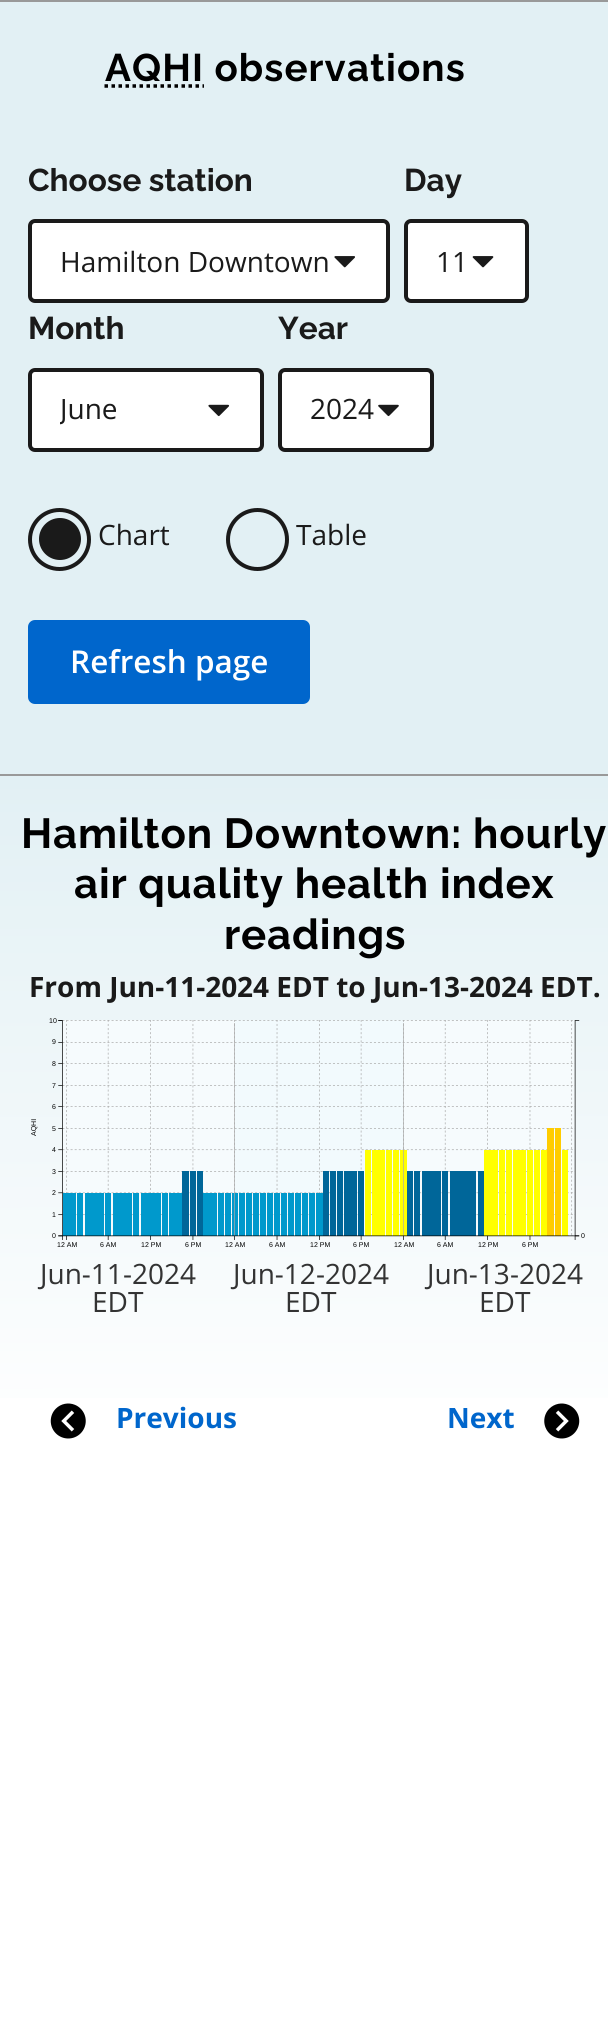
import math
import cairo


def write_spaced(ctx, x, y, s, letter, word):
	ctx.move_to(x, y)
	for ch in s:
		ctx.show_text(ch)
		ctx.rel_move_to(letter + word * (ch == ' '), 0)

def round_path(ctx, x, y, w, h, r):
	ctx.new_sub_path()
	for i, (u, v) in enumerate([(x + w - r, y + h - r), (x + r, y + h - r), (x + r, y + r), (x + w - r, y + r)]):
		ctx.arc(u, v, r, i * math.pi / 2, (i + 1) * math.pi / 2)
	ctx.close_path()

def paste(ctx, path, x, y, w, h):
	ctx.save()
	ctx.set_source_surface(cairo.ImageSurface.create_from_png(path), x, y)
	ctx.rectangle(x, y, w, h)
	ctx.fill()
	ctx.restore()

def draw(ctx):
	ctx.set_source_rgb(1, 1, 1)
	ctx.paint()
	ctx.set_source_rgb(0.886, 0.941, 0.957)
	ctx.rectangle(0, 2, 608, 772)
	ctx.fill()
	ctx.set_source_rgb(0.6, 0.6, 0.6)
	ctx.rectangle(0, 0, 608, 2)
	ctx.rectangle(0, 774, 608, 2)
	ctx.fill()
	ctx.select_font_face('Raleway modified', cairo.FONT_SLANT_NORMAL, cairo.FONT_WEIGHT_BOLD)
	ctx.set_font_size(38.5)
	ctx.set_source_rgb(0, 0, 0)
	write_spaced(ctx, 105, 81, 'AQHI observations', 1.1, 0)
	ctx.new_path()
	ctx.move_to(104.5, 86)
	ctx.line_to(204, 86)
	ctx.set_line_width(3.5)
	ctx.set_dash([3.5, 3.5])
	ctx.stroke()
	ctx.set_font_size(31.5)
	ctx.set_source_rgb(0.102, 0.102, 0.102)
	ctx.move_to(28, 191)
	ctx.show_text('Choose station')
	ctx.set_source_rgb(1, 1, 1)
	round_path(ctx, 28, 219, 362, 84, 7)
	ctx.fill()
	paste(ctx, 'media/1.png', 334, 256, 21, 12)
	round_path(ctx, 30, 221, 358, 80, 5)
	ctx.set_source_rgb(0.102, 0.102, 0.102)
	ctx.set_line_width(4)
	ctx.set_dash([])
	ctx.stroke()
	ctx.select_font_face('Open Sans')
	ctx.set_font_size(28)
	ctx.move_to(60, 272)
	ctx.show_text('Hamilton Downtown')
	ctx.select_font_face('Raleway modified', cairo.FONT_SLANT_NORMAL, cairo.FONT_WEIGHT_BOLD)
	ctx.set_font_size(31.5)
	ctx.move_to(404, 191)
	ctx.show_text('Day')
	ctx.set_source_rgb(1, 1, 1)
	round_path(ctx, 404, 219, 125, 84, 7)
	ctx.fill()
	paste(ctx, 'media/2.png', 472, 256, 22, 12)
	round_path(ctx, 406, 221, 121, 80, 5)
	ctx.set_source_rgb(0.102, 0.102, 0.102)
	ctx.stroke()
	ctx.select_font_face('Open Sans')
	ctx.set_font_size(28)
	ctx.move_to(436, 272)
	ctx.show_text('11')
	ctx.select_font_face('Raleway modified', cairo.FONT_SLANT_NORMAL, cairo.FONT_WEIGHT_BOLD)
	ctx.set_font_size(31.5)
	ctx.move_to(28, 339)
	ctx.show_text('Month')
	ctx.set_source_rgb(1, 1, 1)
	round_path(ctx, 28, 368, 236, 84, 7)
	ctx.fill()
	paste(ctx, 'media/3.png', 208, 404, 22, 13)
	round_path(ctx, 30, 370, 232, 80, 5)
	ctx.set_source_rgb(0.102, 0.102, 0.102)
	ctx.stroke()
	ctx.save()
	ctx.rectangle(60, 389, 145, 42)
	ctx.clip()
	ctx.select_font_face('Open Sans')
	ctx.set_font_size(28)
	ctx.move_to(60, 419)
	ctx.show_text('June')
	ctx.restore()
	ctx.move_to(278, 339)
	ctx.show_text('Year')
	ctx.set_source_rgb(1, 1, 1)
	round_path(ctx, 278, 368, 156, 84, 7)
	ctx.fill()
	paste(ctx, 'media/4.png', 378, 404, 21, 13)
	round_path(ctx, 280, 370, 152, 80, 5)
	ctx.set_source_rgb(0.102, 0.102, 0.102)
	ctx.stroke()
	ctx.select_font_face('Open Sans')
	ctx.set_font_size(28)
	ctx.move_to(310, 419)
	ctx.show_text('2024')
	ctx.new_path()
	ctx.arc(59.5, 539.5, 29.5, 0, 2 * math.pi)
	ctx.stroke()
	ctx.arc(60, 539, 21, 0, 2 * math.pi)
	ctx.fill()
	ctx.move_to(98, 545)
	ctx.show_text('Chart')
	ctx.new_path()
	ctx.arc(257.5, 539.5, 29.5, 0, 2 * math.pi)
	ctx.stroke()
	ctx.move_to(296, 545)
	ctx.show_text('Table')
	ctx.set_source_rgb(0, 0.4, 0.8)
	round_path(ctx, 28, 620, 282, 84, 7)
	ctx.fill()
	ctx.select_font_face('Open Sans SemiBold')
	ctx.set_font_size(31.5)
	ctx.set_source_rgb(1, 1, 1)
	ctx.move_to(70, 673)
	ctx.show_text('Refresh page')
	gradient = cairo.LinearGradient(304, 775, 305, 1456)
	gradient.add_color_stop_rgba(0, 0.886, 0.941, 0.957, 1)
	gradient.add_color_stop_rgba(1, 1, 1, 1, 1)
	ctx.set_source(gradient)
	ctx.rectangle(0, 776, 608, 622)
	ctx.fill()
	ctx.select_font_face('Raleway modified', cairo.FONT_SLANT_NORMAL, cairo.FONT_WEIGHT_BOLD)
	ctx.set_font_size(42)
	ctx.set_source_rgb(0, 0, 0)
	for x, y, s in [
		(21, 848, 'Hamilton Downtown: hourly'),
		(74, 898, 'air quality health index'),
		(224, 949, 'readings'),
	]:
		write_spaced(ctx, x, y, s, 0.8, 0)
	ctx.select_font_face('Open Sans', cairo.FONT_SLANT_NORMAL, cairo.FONT_WEIGHT_BOLD)
	ctx.set_font_size(28)
	ctx.set_source_rgb(0.102, 0.102, 0.102)
	ctx.move_to(29, 997)
	ctx.show_text('From Jun-11-2024 EDT to Jun-13-2024 EDT.')
	ctx.select_font_face('Liberation Sans')
	ctx.set_font_size(7)
	ctx.set_source_rgb(0, 0, 0)
	ctx.move_to(49, 1023)
	ctx.show_text('10')
	paste(ctx, 'media/5.png', 58, 1020, 522, 220)
	for x, y, s in [
		(52, 1044, '9'),
		(52, 1066, '8'),
		(52, 1088, '7'),
		(52, 1109, '6'),
	]:
		ctx.move_to(x, y)
		ctx.show_text(s)
	ctx.save()
	ctx.translate(36, 1136)
	ctx.rotate(-90 * math.pi / 180)
	ctx.move_to(0, 0)
	ctx.show_text('AQHI')
	ctx.restore()
	for x, y, s in [
		(52, 1131, '5'),
		(52, 1152, '4'),
		(52, 1174, '3'),
		(52, 1195, '2'),
		(52, 1217, '1'),
		(52, 1238, '0'),
		(581, 1238, '0'),
		(57, 1247, '12 AM'),
		(100, 1247, '6 AM'),
		(141, 1247, '12 PM'),
		(185, 1247, '6 PM'),
		(225, 1247, '12 AM'),
		(269, 1247, '6 AM'),
		(310, 1247, '12 PM'),
		(353, 1247, '6 PM'),
		(394, 1247, '12 AM'),
		(437, 1247, '6 AM'),
		(478, 1247, '12 PM'),
		(522, 1247, '6 PM'),
	]:
		ctx.move_to(x, y)
		ctx.show_text(s)
	ctx.select_font_face('Open Sans')
	ctx.set_font_size(28)
	ctx.set_source_rgb(0.2, 0.2, 0.2)
	for x, y, s in [
		(40, 1284, 'Jun-11-2024'),
		(92, 1312, 'EDT'),
		(233, 1284, 'Jun-12-2024'),
		(285, 1312, 'EDT'),
		(427, 1284, 'Jun-13-2024'),
		(479, 1312, 'EDT'),
	]:
		ctx.move_to(x, y)
		ctx.show_text(s)
	paste(ctx, 'media/6.png', 50, 1403, 36, 36)
	ctx.select_font_face('Open Sans', cairo.FONT_SLANT_NORMAL, cairo.FONT_WEIGHT_BOLD)
	ctx.set_source_rgb(0, 0.4, 0.8)
	ctx.move_to(116, 1428)
	ctx.show_text('Previous')
	ctx.move_to(447, 1428)
	ctx.show_text('Next')
	paste(ctx, 'media/7.png', 544, 1403, 36, 36)


surface = cairo.ImageSurface(cairo.FORMAT_RGB24, 608, 2027)
ctx = cairo.Context(surface)
options = cairo.FontOptions()
options.set_hint_metrics(cairo.HINT_METRICS_OFF)
options.set_hint_style(cairo.HINT_STYLE_NONE)
ctx.set_font_options(options)
ctx.set_miter_limit(4)
draw(ctx)
surface.write_to_png('image.png')
